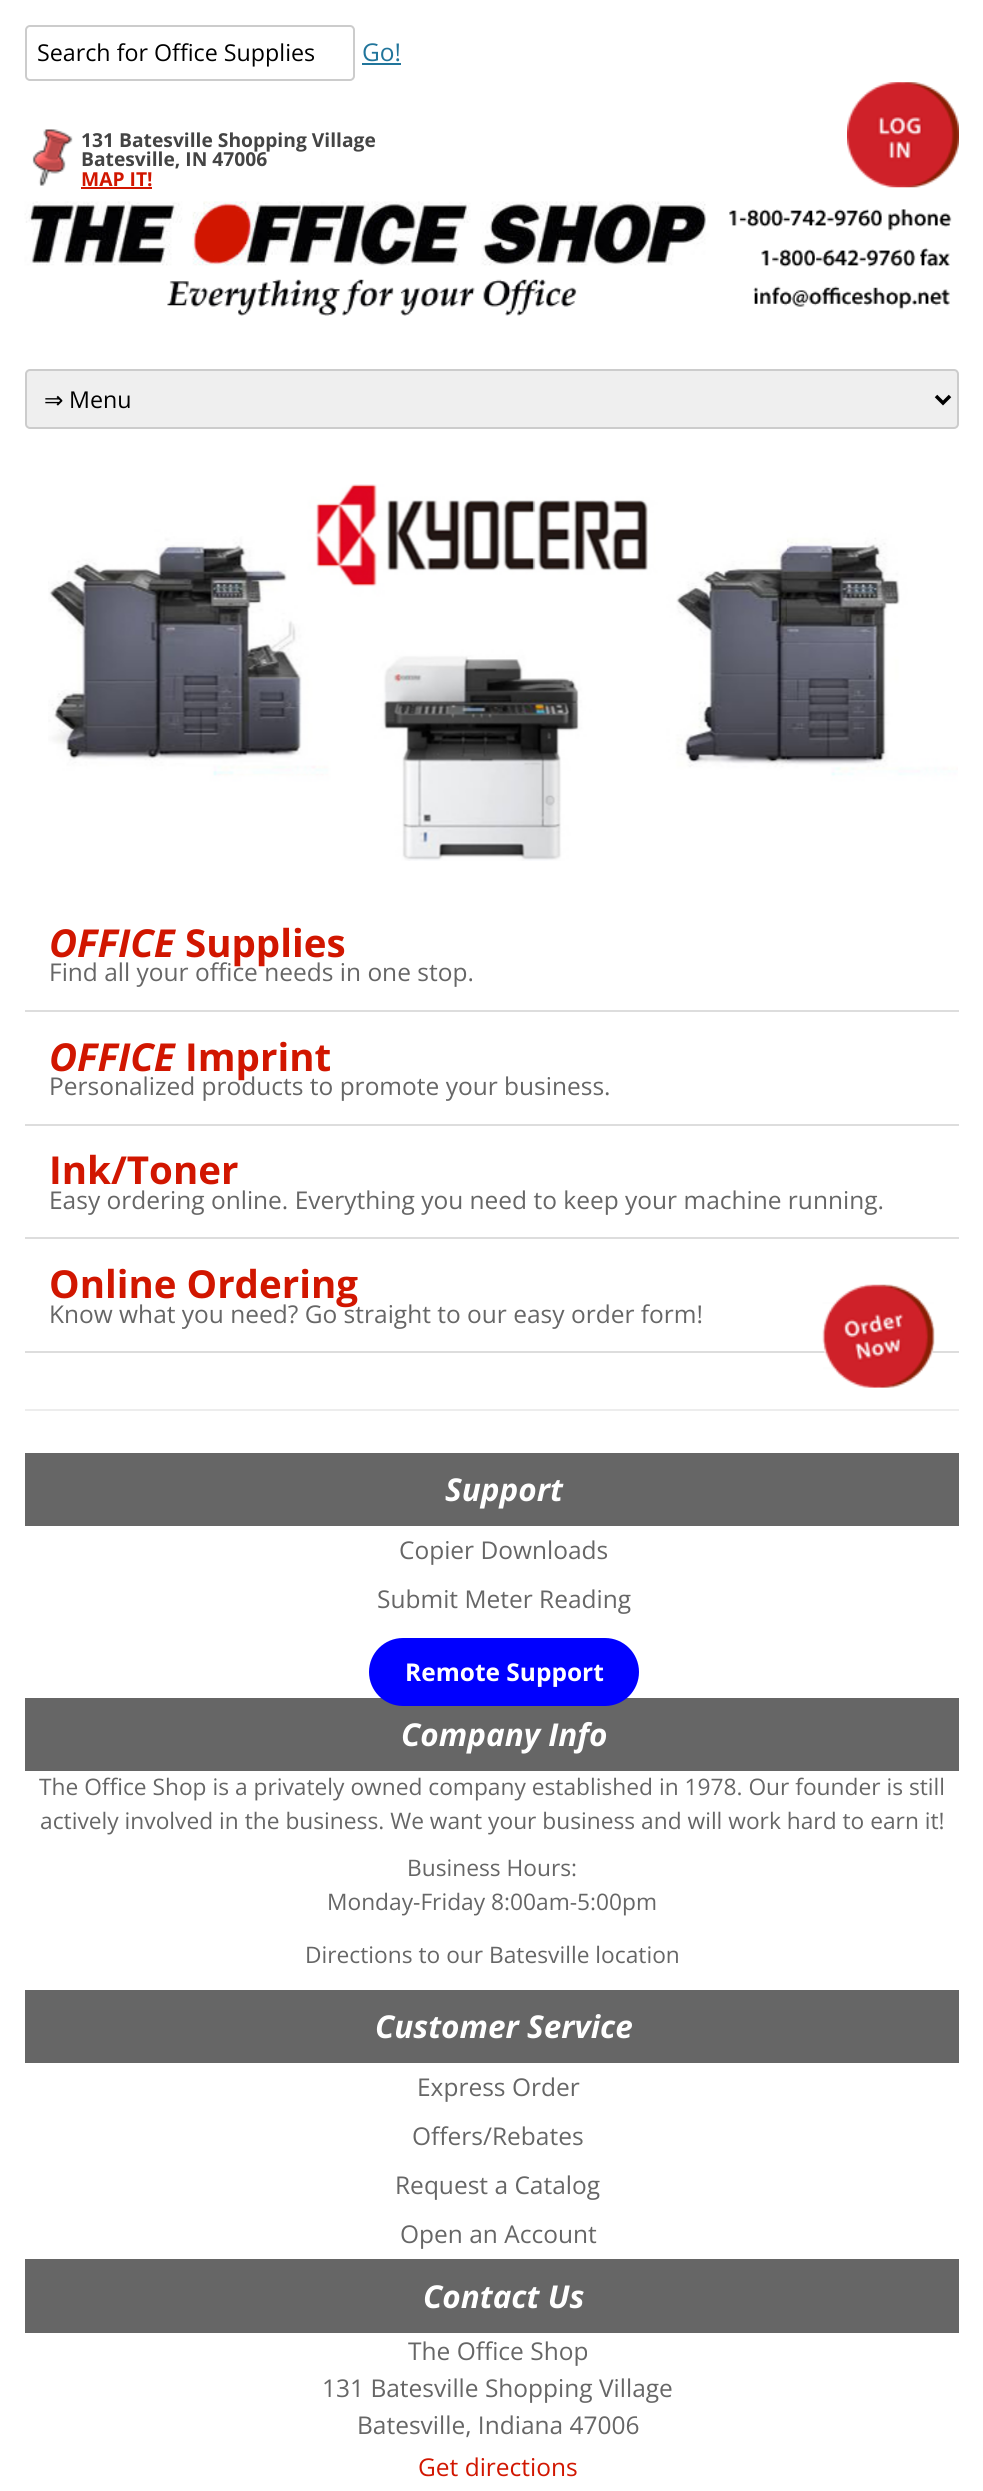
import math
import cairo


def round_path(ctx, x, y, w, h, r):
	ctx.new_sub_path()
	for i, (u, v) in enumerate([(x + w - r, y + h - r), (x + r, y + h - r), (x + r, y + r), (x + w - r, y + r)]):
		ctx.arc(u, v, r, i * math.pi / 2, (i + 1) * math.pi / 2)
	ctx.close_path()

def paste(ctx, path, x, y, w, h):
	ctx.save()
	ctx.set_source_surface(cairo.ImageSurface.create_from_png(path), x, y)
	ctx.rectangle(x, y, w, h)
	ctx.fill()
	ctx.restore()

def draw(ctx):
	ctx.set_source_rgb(1, 1, 1)
	ctx.paint()
	round_path(ctx, 26, 26, 328, 54, 4)
	ctx.set_source_rgb(0.8, 0.8, 0.8)
	ctx.stroke()
	ctx.select_font_face('Open Sans')
	ctx.set_font_size(23.25)
	ctx.set_source_rgb(0, 0, 0)
	ctx.move_to(37, 61)
	ctx.show_text('Search for Office Supplies')
	ctx.set_font_size(24.5)
	ctx.set_source_rgb(0.129, 0.459, 0.608)
	ctx.move_to(362, 61)
	ctx.show_text('Go!')
	ctx.rectangle(362, 63, 39, 2)
	ctx.fill()
	paste(ctx, 'media/1.png', 32, 129, 41, 57)
	ctx.select_font_face('Open Sans', cairo.FONT_SLANT_NORMAL, cairo.FONT_WEIGHT_BOLD)
	ctx.set_font_size(19.25)
	ctx.set_source_rgb(0.267, 0.267, 0.267)
	ctx.move_to(81, 147)
	ctx.show_text('131 Batesville Shopping Village')
	ctx.move_to(81, 166)
	ctx.show_text('Batesville, IN 47006')
	ctx.set_source_rgb(0.82, 0.086, 0)
	ctx.move_to(81, 186)
	ctx.show_text('MAP IT!')
	ctx.rectangle(81, 187, 71, 2)
	ctx.fill()
	paste(ctx, 'media/2.png', 847, 82, 112, 106)
	paste(ctx, 'media/3.png', 24, 201, 928, 115)
	ctx.set_source_rgb(0.937, 0.937, 0.937)
	round_path(ctx, 26, 370, 932, 58, 4)
	ctx.fill_preserve()
	ctx.set_source_rgb(0.8, 0.8, 0.8)
	ctx.stroke()
	ctx.new_path()
	ctx.move_to(936, 396)
	ctx.line_to(943, 403)
	ctx.line_to(950, 396)
	ctx.set_source_rgb(0, 0, 0)
	ctx.set_line_width(3.5)
	ctx.stroke()
	ctx.select_font_face('DejaVu Sans')
	ctx.set_font_size(23.25)
	ctx.move_to(44, 408)
	ctx.show_text('⇒')
	ctx.select_font_face('Open Sans')
	ctx.move_to(69, 408)
	ctx.show_text('Menu')
	paste(ctx, 'media/4.png', 48, 484, 910, 377)
	ctx.set_source_rgb(0.867, 0.867, 0.867)
	ctx.rectangle(25, 1010, 934, 2)
	ctx.fill()
	ctx.select_font_face('Open Sans', cairo.FONT_SLANT_ITALIC, cairo.FONT_WEIGHT_BOLD)
	ctx.set_font_size(38.5)
	ctx.set_source_rgb(0.82, 0.086, 0)
	ctx.move_to(49, 957)
	ctx.show_text('OFFICE')
	ctx.select_font_face('Open Sans', cairo.FONT_SLANT_NORMAL, cairo.FONT_WEIGHT_BOLD)
	ctx.move_to(185, 957)
	ctx.show_text('Supplies')
	ctx.select_font_face('Open Sans')
	ctx.set_font_size(24.5)
	ctx.set_source_rgb(0.4, 0.4, 0.4)
	ctx.move_to(49, 981)
	ctx.show_text('Find all your office needs in one stop.')
	ctx.set_source_rgb(0.867, 0.867, 0.867)
	ctx.rectangle(25, 1124, 934, 2)
	ctx.fill()
	ctx.select_font_face('Open Sans', cairo.FONT_SLANT_ITALIC, cairo.FONT_WEIGHT_BOLD)
	ctx.set_font_size(38.5)
	ctx.set_source_rgb(0.82, 0.086, 0)
	ctx.move_to(49, 1071)
	ctx.show_text('OFFICE')
	ctx.select_font_face('Open Sans', cairo.FONT_SLANT_NORMAL, cairo.FONT_WEIGHT_BOLD)
	ctx.move_to(185, 1071)
	ctx.show_text('Imprint')
	ctx.select_font_face('Open Sans')
	ctx.set_font_size(24.5)
	ctx.set_source_rgb(0.4, 0.4, 0.4)
	ctx.move_to(49, 1095)
	ctx.show_text('Personalized products to promote your business.')
	ctx.set_source_rgb(0.867, 0.867, 0.867)
	ctx.rectangle(25, 1237, 934, 2)
	ctx.fill()
	ctx.select_font_face('Open Sans', cairo.FONT_SLANT_NORMAL, cairo.FONT_WEIGHT_BOLD)
	ctx.set_font_size(38.5)
	ctx.set_source_rgb(0.82, 0.086, 0)
	ctx.move_to(49, 1184)
	ctx.show_text('Ink/Toner')
	ctx.select_font_face('Open Sans')
	ctx.set_font_size(24.5)
	ctx.set_source_rgb(0.4, 0.4, 0.4)
	ctx.move_to(49, 1209)
	ctx.show_text('Easy ordering online. Everything you need to keep your machine running.')
	ctx.set_source_rgb(0.867, 0.867, 0.867)
	ctx.rectangle(25, 1351, 934, 2)
	ctx.fill()
	ctx.select_font_face('Open Sans', cairo.FONT_SLANT_NORMAL, cairo.FONT_WEIGHT_BOLD)
	ctx.set_font_size(38.5)
	ctx.set_source_rgb(0.82, 0.086, 0)
	ctx.move_to(49, 1298)
	ctx.show_text('Online Ordering')
	paste(ctx, 'media/5.png', 822, 1284, 113, 104)
	ctx.select_font_face('Open Sans')
	ctx.set_font_size(24.5)
	ctx.set_source_rgb(0.4, 0.4, 0.4)
	ctx.move_to(49, 1323)
	ctx.show_text('Know what you need? Go straight to our easy order form!')
	ctx.set_source_rgb(0.929, 0.929, 0.929)
	ctx.rectangle(25, 1409, 934, 2)
	ctx.fill()
	ctx.set_source_rgb(0.4, 0.4, 0.4)
	ctx.rectangle(25, 1453, 934, 73)
	ctx.fill()
	ctx.select_font_face('Open Sans', cairo.FONT_SLANT_ITALIC, cairo.FONT_WEIGHT_BOLD)
	ctx.set_font_size(31.5)
	ctx.set_source_rgb(1, 1, 1)
	ctx.move_to(445, 1501)
	ctx.show_text('Support')
	ctx.select_font_face('Open Sans')
	ctx.set_font_size(24.5)
	ctx.set_source_rgb(0.4, 0.4, 0.4)
	ctx.move_to(399, 1559)
	ctx.show_text('Copier Downloads')
	ctx.move_to(377, 1608)
	ctx.show_text('Submit Meter Reading')
	ctx.rectangle(25, 1698, 934, 73)
	ctx.fill()
	ctx.set_source_rgb(0, 0, 1)
	round_path(ctx, 369, 1638, 270, 68, 34)
	ctx.fill()
	ctx.select_font_face('Open Sans', cairo.FONT_SLANT_NORMAL, cairo.FONT_WEIGHT_BOLD)
	ctx.set_source_rgb(1, 1, 1)
	ctx.move_to(405, 1681)
	ctx.show_text('Remote Support')
	ctx.select_font_face('Open Sans', cairo.FONT_SLANT_ITALIC, cairo.FONT_WEIGHT_BOLD)
	ctx.set_font_size(31.5)
	ctx.move_to(401, 1746)
	ctx.show_text('Company Info')
	ctx.select_font_face('Open Sans')
	ctx.set_font_size(22.75)
	ctx.set_source_rgb(0.4, 0.4, 0.4)
	for x, y, s in [
		(39, 1795, 'The Office Shop is a privately owned company established in 1978. Our founder is still'),
		(40, 1829, 'actively involved in the business. We want your business and will work hard to earn it!'),
		(407, 1876, 'Business Hours:'),
		(327, 1910, 'Monday-Friday 8:00am-5:00pm'),
		(305, 1963, 'Directions to our Batesville location'),
	]:
		ctx.move_to(x, y)
		ctx.show_text(s)
	ctx.rectangle(25, 1990, 934, 73)
	ctx.fill()
	ctx.select_font_face('Open Sans', cairo.FONT_SLANT_ITALIC, cairo.FONT_WEIGHT_BOLD)
	ctx.set_font_size(31.5)
	ctx.set_source_rgb(1, 1, 1)
	ctx.move_to(375, 2038)
	ctx.show_text('Customer Service')
	ctx.select_font_face('Open Sans')
	ctx.set_font_size(24.5)
	ctx.set_source_rgb(0.4, 0.4, 0.4)
	for x, y, s in [
		(417, 2096, 'Express Order'),
		(412, 2145, 'Offers/Rebates'),
		(395, 2194, 'Request a Catalog'),
		(400, 2243, 'Open an Account'),
	]:
		ctx.move_to(x, y)
		ctx.show_text(s)
	ctx.rectangle(25, 2259, 934, 74)
	ctx.fill()
	ctx.select_font_face('Open Sans', cairo.FONT_SLANT_ITALIC, cairo.FONT_WEIGHT_BOLD)
	ctx.set_font_size(31.5)
	ctx.set_source_rgb(1, 1, 1)
	ctx.move_to(423, 2308)
	ctx.show_text('Contact Us')
	ctx.select_font_face('Open Sans')
	ctx.set_font_size(24.5)
	ctx.set_source_rgb(0.4, 0.4, 0.4)
	for x, y, s in [
		(408, 2360, 'The Office Shop'),
		(322, 2397, '131 Batesville Shopping Village'),
		(357, 2434, 'Batesville, Indiana 47006'),
	]:
		ctx.move_to(x, y)
		ctx.show_text(s)
	ctx.set_source_rgb(0.82, 0.086, 0)
	ctx.move_to(418, 2476)
	ctx.show_text('Get directions')


surface = cairo.ImageSurface(cairo.FORMAT_RGB24, 983, 2491)
ctx = cairo.Context(surface)
options = cairo.FontOptions()
options.set_hint_metrics(cairo.HINT_METRICS_OFF)
options.set_hint_style(cairo.HINT_STYLE_NONE)
ctx.set_font_options(options)
ctx.set_miter_limit(4)
draw(ctx)
surface.write_to_png('image.png')
